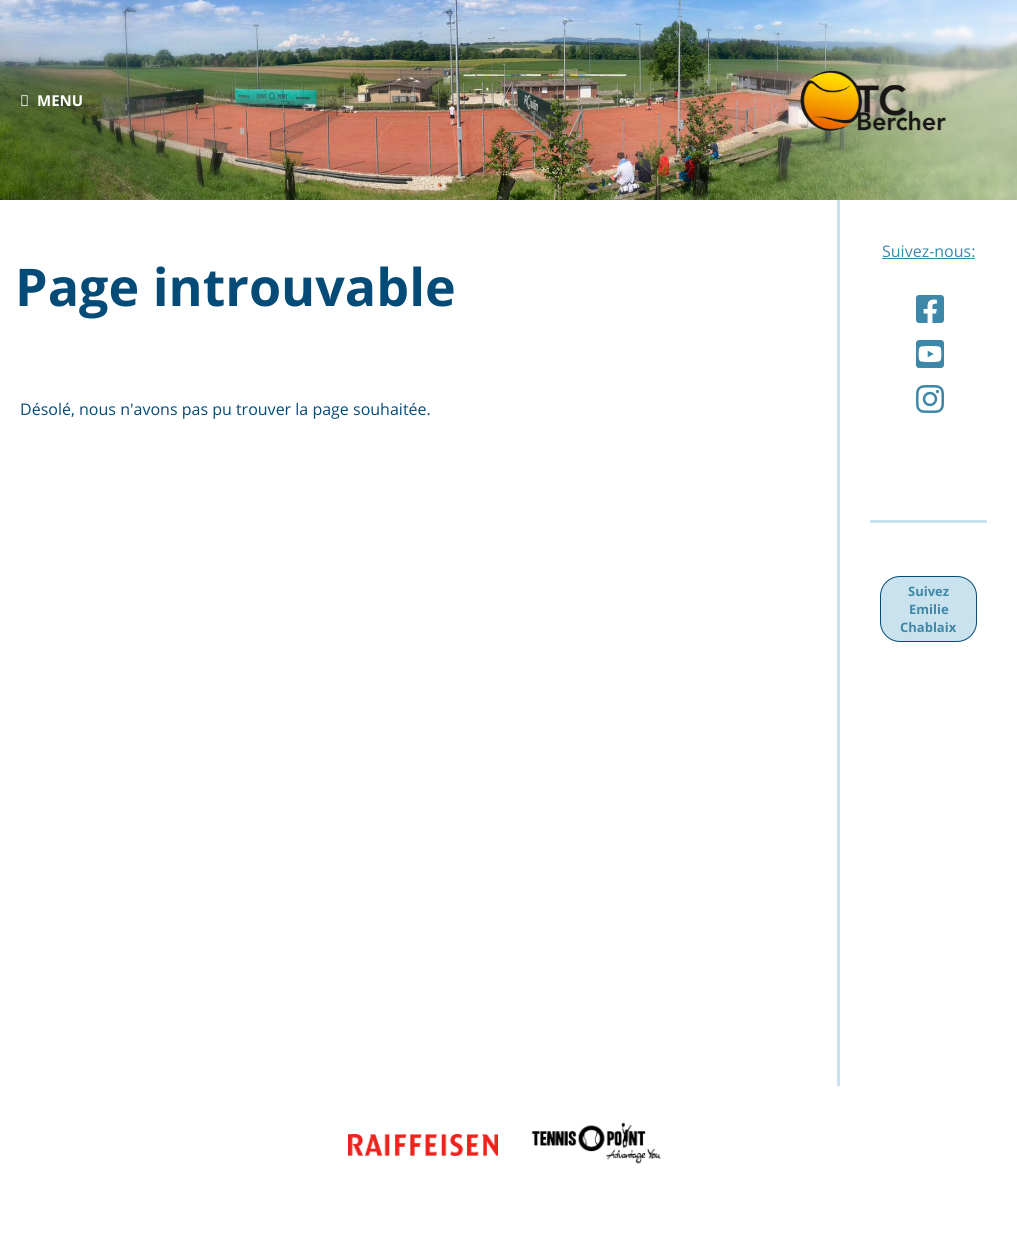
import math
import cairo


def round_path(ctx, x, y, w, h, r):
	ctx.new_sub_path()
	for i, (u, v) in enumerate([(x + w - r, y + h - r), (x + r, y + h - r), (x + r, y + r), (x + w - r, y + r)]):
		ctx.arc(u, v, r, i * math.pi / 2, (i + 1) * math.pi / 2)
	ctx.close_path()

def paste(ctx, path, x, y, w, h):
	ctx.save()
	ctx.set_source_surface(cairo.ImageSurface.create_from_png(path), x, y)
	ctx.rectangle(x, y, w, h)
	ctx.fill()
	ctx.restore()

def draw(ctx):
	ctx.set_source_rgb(1, 1, 1)
	ctx.paint()
	paste(ctx, 'media/3.png', 0, 0, 1017, 200)
	paste(ctx, 'media/1.png', 21, 95, 7, 11)
	ctx.select_font_face('Open Sans', cairo.FONT_SLANT_NORMAL, cairo.FONT_WEIGHT_BOLD)
	ctx.set_font_size(15)
	ctx.set_source_rgb(1, 1, 1)
	ctx.move_to(37, 106)
	ctx.show_text('MENU')
	paste(ctx, 'media/2.png', 800, 70, 146, 61)
	ctx.set_font_size(52)
	ctx.set_source_rgb(0.016, 0.298, 0.467)
	ctx.move_to(15, 306)
	ctx.show_text('Page introuvable')
	ctx.select_font_face('Open Sans')
	ctx.set_font_size(16)
	ctx.move_to(20, 415)
	ctx.show_text('Désolé, nous n\'avons pas pu trouver la page souhaitée.')
	ctx.set_source_rgb(0.792, 0.886, 0.929)
	ctx.rectangle(837, 200, 3, 886)
	ctx.fill()
	ctx.set_source_rgb(0.239, 0.529, 0.663)
	ctx.move_to(882, 257)
	ctx.show_text('Suivez-nous:')
	ctx.rectangle(882, 258, 93, 1)
	ctx.fill()
	paste(ctx, 'media/4.png', 916, 295, 28, 28)
	paste(ctx, 'media/5.png', 916, 340, 28, 28)
	paste(ctx, 'media/6.png', 916, 385, 28, 28)
	ctx.set_source_rgb(0.792, 0.886, 0.929)
	ctx.rectangle(870, 520, 117, 3)
	ctx.fill()
	round_path(ctx, 880.5, 576.5, 96, 65, 19.5)
	ctx.fill_preserve()
	ctx.set_source_rgb(0.016, 0.298, 0.467)
	ctx.set_line_width(1)
	ctx.stroke()
	ctx.select_font_face('Open Sans', cairo.FONT_SLANT_NORMAL, cairo.FONT_WEIGHT_BOLD)
	ctx.set_font_size(13)
	ctx.set_source_rgb(0.239, 0.529, 0.663)
	for x, y, s in [
		(908, 596, 'Suivez'),
		(909, 614, 'Emilie'),
		(900, 632, 'Chablaix'),
	]:
		ctx.move_to(x, y)
		ctx.show_text(s)
	paste(ctx, 'media/7.png', 348, 1134, 150, 22)
	paste(ctx, 'media/8.png', 531, 1122, 131, 42)


surface = cairo.ImageSurface(cairo.FORMAT_RGB24, 1017, 1235)
ctx = cairo.Context(surface)
options = cairo.FontOptions()
options.set_hint_metrics(cairo.HINT_METRICS_OFF)
options.set_hint_style(cairo.HINT_STYLE_NONE)
ctx.set_font_options(options)
ctx.set_miter_limit(4)
draw(ctx)
surface.write_to_png('image.png')
